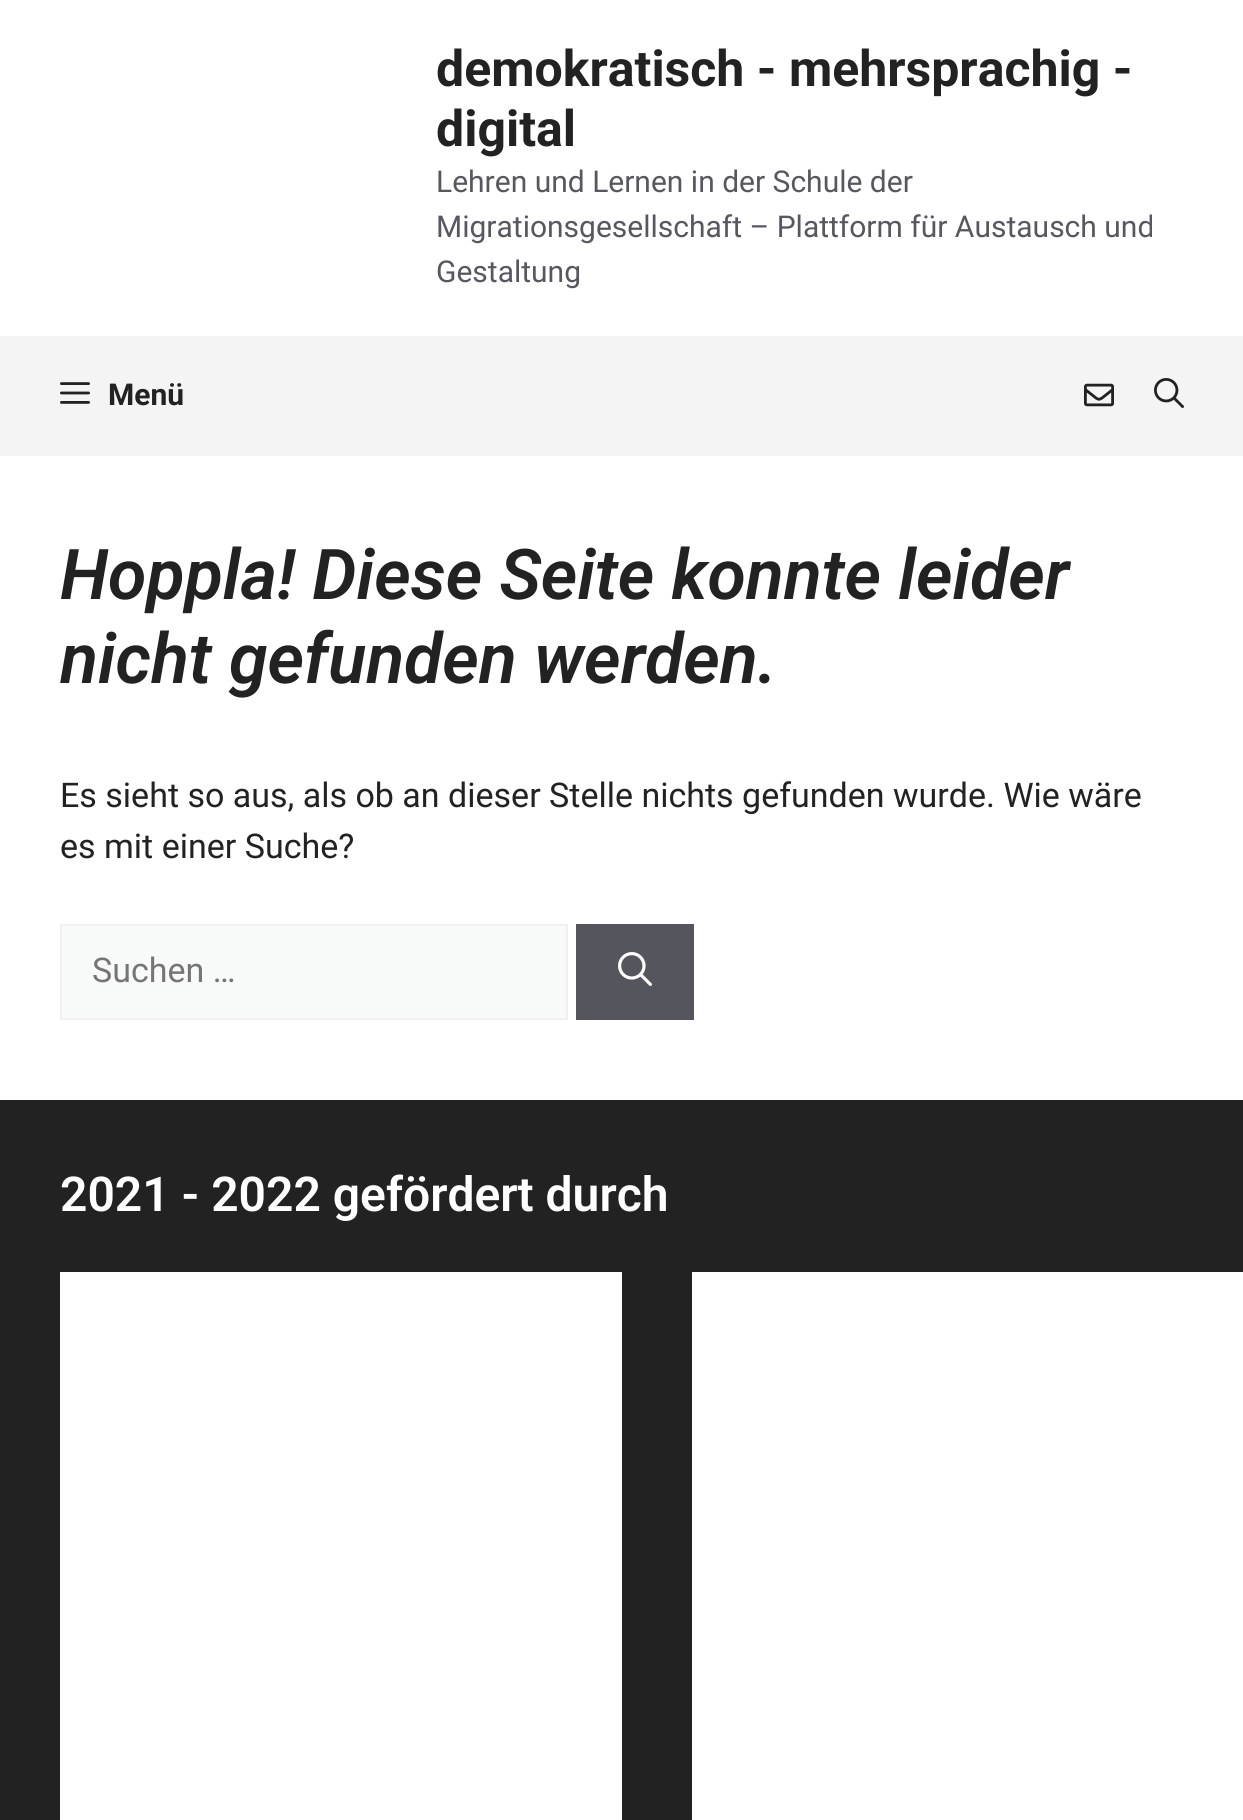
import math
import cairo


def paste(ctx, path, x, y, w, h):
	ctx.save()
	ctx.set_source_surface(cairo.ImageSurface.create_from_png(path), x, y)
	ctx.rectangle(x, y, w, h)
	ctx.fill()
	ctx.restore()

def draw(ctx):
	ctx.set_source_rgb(1, 1, 1)
	ctx.paint()
	ctx.select_font_face('Roboto', cairo.FONT_SLANT_NORMAL, cairo.FONT_WEIGHT_BOLD)
	ctx.set_font_size(50)
	ctx.set_source_rgb(0.133, 0.133, 0.133)
	ctx.move_to(436, 86)
	ctx.show_text('demokratisch - mehrsprachig -')
	ctx.move_to(436, 146)
	ctx.show_text('digital')
	ctx.select_font_face('Roboto')
	ctx.set_font_size(30)
	ctx.set_source_rgb(0.341, 0.341, 0.376)
	for x, y, s in [
		(436, 192, 'Lehren und Lernen in der Schule der'),
		(436, 237, 'Migrationsgesellschaft – Plattform für Austausch und'),
		(436, 282, 'Gestaltung'),
	]:
		ctx.move_to(x, y)
		ctx.show_text(s)
	ctx.set_source_rgb(0.957, 0.957, 0.957)
	ctx.rectangle(0, 336, 1243, 120)
	ctx.fill()
	paste(ctx, 'media/1.png', 60, 382, 30, 22)
	ctx.select_font_face('Roboto', cairo.FONT_SLANT_NORMAL, cairo.FONT_WEIGHT_BOLD)
	ctx.set_source_rgb(0.133, 0.133, 0.133)
	ctx.move_to(108, 405)
	ctx.show_text('Menü')
	paste(ctx, 'media/2.png', 1084, 383, 30, 24)
	paste(ctx, 'media/3.png', 1154, 378, 30, 30)
	ctx.select_font_face('Roboto SemiBold', cairo.FONT_SLANT_ITALIC)
	ctx.set_font_size(70)
	ctx.move_to(60, 599)
	ctx.show_text('Hoppla! Diese Seite konnte leider')
	ctx.move_to(60, 683)
	ctx.show_text('nicht gefunden werden.')
	ctx.select_font_face('Roboto')
	ctx.set_font_size(34)
	ctx.move_to(60, 807)
	ctx.show_text('Es sieht so aus, als ob an dieser Stelle nichts gefunden wurde. Wie wäre')
	ctx.move_to(60, 858)
	ctx.show_text('es mit einer Suche?')
	ctx.set_source_rgb(0.969, 0.973, 0.976)
	ctx.rectangle(61, 925, 506, 94)
	ctx.fill_preserve()
	ctx.set_source_rgb(0.941, 0.941, 0.941)
	ctx.stroke()
	ctx.set_source_rgb(0.459, 0.459, 0.459)
	ctx.move_to(92, 982)
	ctx.show_text('Suchen …')
	ctx.set_source_rgb(0.333, 0.333, 0.369)
	ctx.rectangle(576, 924, 118, 96)
	ctx.fill()
	paste(ctx, 'media/4.png', 618, 952, 34, 34)
	ctx.set_source_rgb(0.133, 0.133, 0.133)
	ctx.rectangle(0, 1100, 1243, 720)
	ctx.fill()
	ctx.select_font_face('Roboto SemiBold')
	ctx.set_font_size(48)
	ctx.set_source_rgb(1, 1, 1)
	ctx.move_to(60, 1211)
	ctx.show_text('2021 - 2022 gefördert durch')
	ctx.rectangle(60, 1272, 562, 548)
	ctx.fill()
	ctx.rectangle(692, 1272, 551, 548)
	ctx.fill()


surface = cairo.ImageSurface(cairo.FORMAT_RGB24, 1243, 1820)
ctx = cairo.Context(surface)
options = cairo.FontOptions()
options.set_hint_metrics(cairo.HINT_METRICS_OFF)
options.set_hint_style(cairo.HINT_STYLE_NONE)
ctx.set_font_options(options)
ctx.set_miter_limit(4)
draw(ctx)
surface.write_to_png('image.png')
